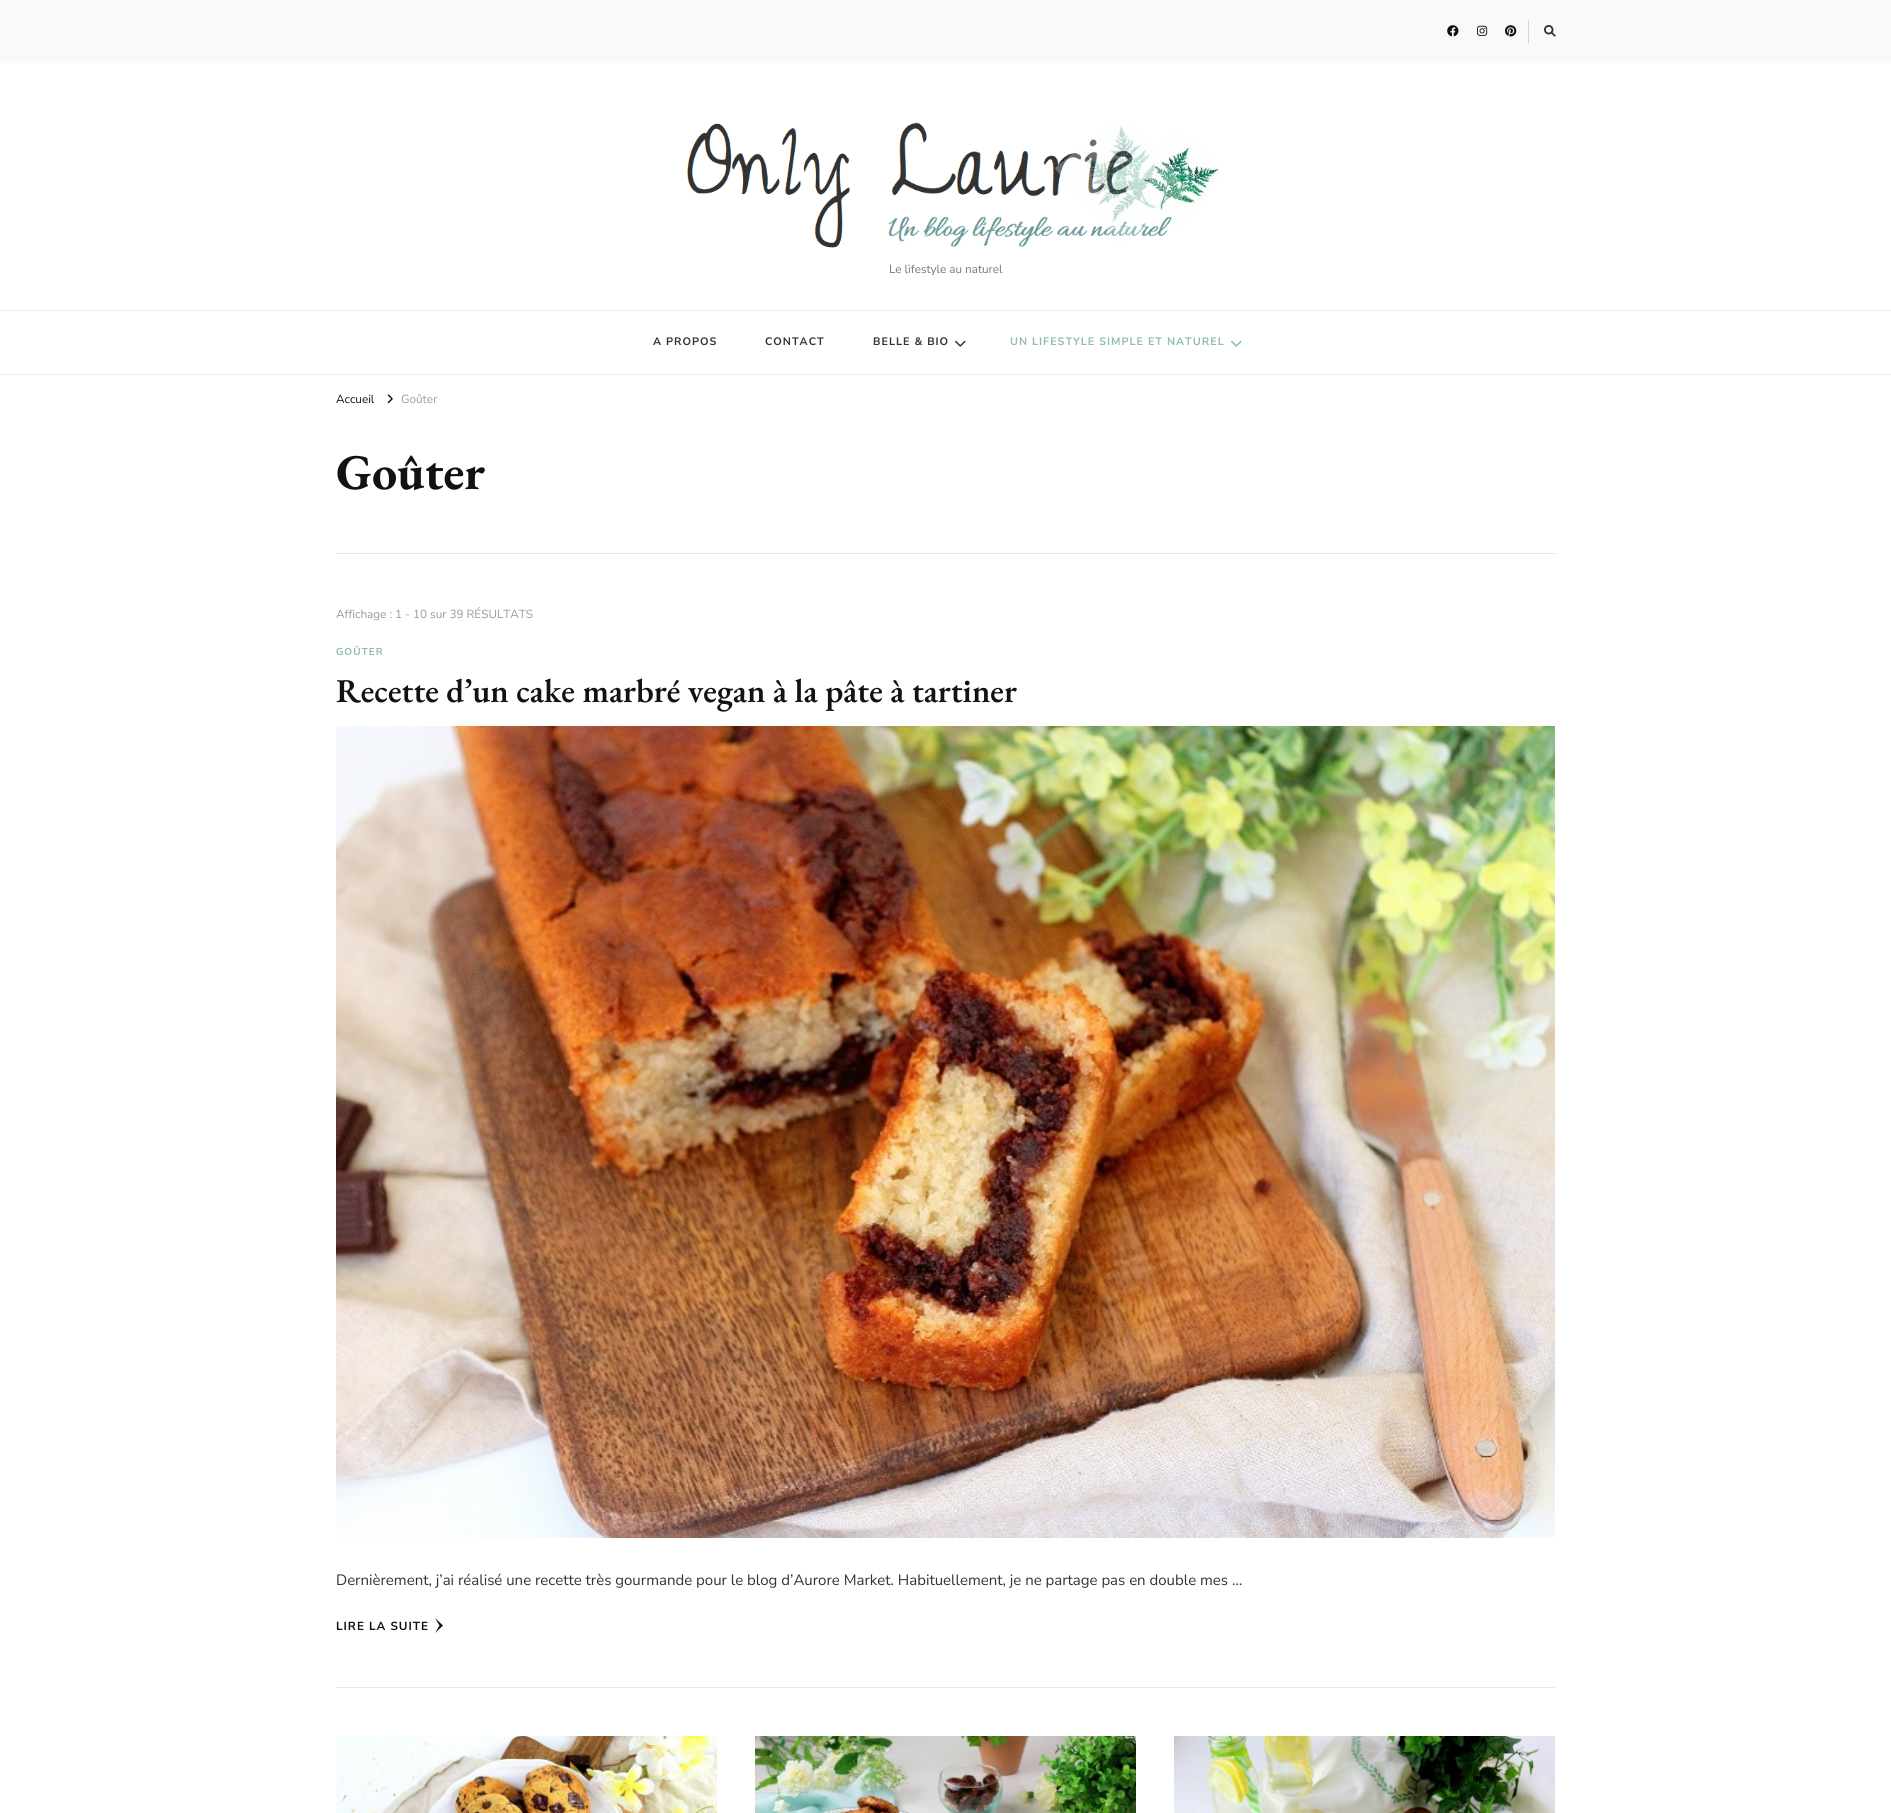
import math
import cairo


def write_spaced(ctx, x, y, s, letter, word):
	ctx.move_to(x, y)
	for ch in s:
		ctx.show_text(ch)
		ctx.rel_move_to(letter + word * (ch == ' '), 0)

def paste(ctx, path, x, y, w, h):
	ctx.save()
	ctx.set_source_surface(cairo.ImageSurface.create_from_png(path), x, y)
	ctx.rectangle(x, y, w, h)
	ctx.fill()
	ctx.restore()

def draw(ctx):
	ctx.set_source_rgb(1, 1, 1)
	ctx.paint()
	ctx.set_source_rgb(0.973, 0.973, 0.973)
	ctx.rectangle(0, 0, 1891, 63)
	ctx.fill()
	paste(ctx, 'media/1.png', 1447, 25, 12, 12)
	paste(ctx, 'media/2.png', 1477, 25, 11, 11)
	paste(ctx, 'media/3.png', 1505, 25, 12, 12)
	ctx.set_source_rgb(0.827, 0.827, 0.827)
	ctx.rectangle(1528, 20, 1, 23)
	ctx.fill()
	paste(ctx, 'media/4.png', 1544, 25, 12, 12)
	paste(ctx, 'media/5.png', 687, 122, 535, 126)
	ctx.select_font_face('Nunito Sans')
	ctx.set_font_size(11.7)
	ctx.set_source_rgb(0.467, 0.467, 0.467)
	ctx.move_to(889, 273)
	ctx.show_text('Le lifestyle au naturel')
	ctx.set_source_rgb(0.929, 0.929, 0.929)
	ctx.rectangle(0, 310, 1891, 1)
	ctx.fill()
	ctx.rectangle(0, 374, 1891, 1)
	ctx.fill()
	ctx.select_font_face('Nunito Sans', cairo.FONT_SLANT_NORMAL, cairo.FONT_WEIGHT_BOLD)
	ctx.set_font_size(10.8)
	ctx.set_source_rgb(0.2, 0.2, 0.2)
	for x, y, s in [
		(653, 345, 'A PROPOS'),
		(765, 345, 'CONTACT'),
		(873, 345, 'BELLE & BIO'),
	]:
		write_spaced(ctx, x, y, s, 1, 0)
	paste(ctx, 'media/6.png', 955, 340, 11, 7)
	ctx.set_source_rgb(0.565, 0.729, 0.71)
	write_spaced(ctx, 1010, 345, 'UN LIFESTYLE SIMPLE ET NATUREL', 1, 0)
	paste(ctx, 'media/7.png', 1231, 340, 11, 7)
	ctx.select_font_face('Nunito Sans')
	ctx.set_font_size(11.7)
	ctx.set_source_rgb(0.071, 0.071, 0.071)
	ctx.move_to(336, 403)
	ctx.show_text('Accueil')
	paste(ctx, 'media/8.png', 387, 394, 6, 10)
	ctx.set_source_rgb(0.6, 0.6, 0.6)
	ctx.move_to(401, 403)
	ctx.show_text('Goûter')
	ctx.set_source_rgb(0.902, 0.902, 0.902)
	ctx.rectangle(336, 553, 1220, 1)
	ctx.fill()
	ctx.select_font_face('EB Garamond', cairo.FONT_SLANT_NORMAL, cairo.FONT_WEIGHT_BOLD)
	ctx.set_font_size(50)
	ctx.set_source_rgb(0.071, 0.071, 0.071)
	ctx.move_to(336, 489)
	ctx.show_text('Goûter')
	ctx.select_font_face('Nunito Sans')
	ctx.set_font_size(11.7)
	ctx.set_source_rgb(0.6, 0.6, 0.6)
	ctx.move_to(336, 618)
	ctx.show_text('Affichage : 1 - 10 sur 39 RÉSULTATS')
	ctx.set_source_rgb(0.902, 0.902, 0.902)
	ctx.rectangle(336, 1687, 1219, 1)
	ctx.fill()
	ctx.select_font_face('Nunito Sans', cairo.FONT_SLANT_NORMAL, cairo.FONT_WEIGHT_BOLD)
	ctx.set_font_size(10)
	ctx.set_source_rgb(0.565, 0.729, 0.71)
	write_spaced(ctx, 336, 655, 'GOÛTER', 1, 0)
	ctx.select_font_face('EB Garamond SemiBold')
	ctx.set_font_size(33.3)
	ctx.set_source_rgb(0.071, 0.071, 0.071)
	ctx.move_to(336, 702)
	ctx.show_text('Recette d’un cake marbré vegan à la pâte à tartiner')
	paste(ctx, 'media/9.png', 336, 726, 1219, 812)
	ctx.select_font_face('Nunito Sans')
	ctx.set_font_size(15)
	ctx.set_source_rgb(0.2, 0.2, 0.2)
	ctx.move_to(336, 1585)
	ctx.show_text('Dernièrement, j’ai réalisé une recette très gourmande pour le blog d’Aurore Market. Habituellement, je ne partage pas en double mes …')
	ctx.select_font_face('Nunito Sans', cairo.FONT_SLANT_NORMAL, cairo.FONT_WEIGHT_BOLD)
	ctx.set_font_size(11.7)
	ctx.set_source_rgb(0.071, 0.071, 0.071)
	write_spaced(ctx, 336, 1630, 'LIRE LA SUITE', 1, 0)
	ctx.new_path()
	ctx.move_to(443, 1625.5)
	ctx.line_to(435, 1633)
	ctx.line_to(439.5, 1625.5)
	ctx.line_to(435, 1618)
	ctx.close_path()
	ctx.fill()
	paste(ctx, 'media/10.png', 336, 1736, 381, 77)
	paste(ctx, 'media/11.png', 755, 1736, 381, 77)
	paste(ctx, 'media/12.png', 1174, 1736, 381, 77)


surface = cairo.ImageSurface(cairo.FORMAT_RGB24, 1891, 1813)
ctx = cairo.Context(surface)
options = cairo.FontOptions()
options.set_hint_metrics(cairo.HINT_METRICS_OFF)
options.set_hint_style(cairo.HINT_STYLE_NONE)
ctx.set_font_options(options)
ctx.set_miter_limit(4)
draw(ctx)
surface.write_to_png('image.png')
